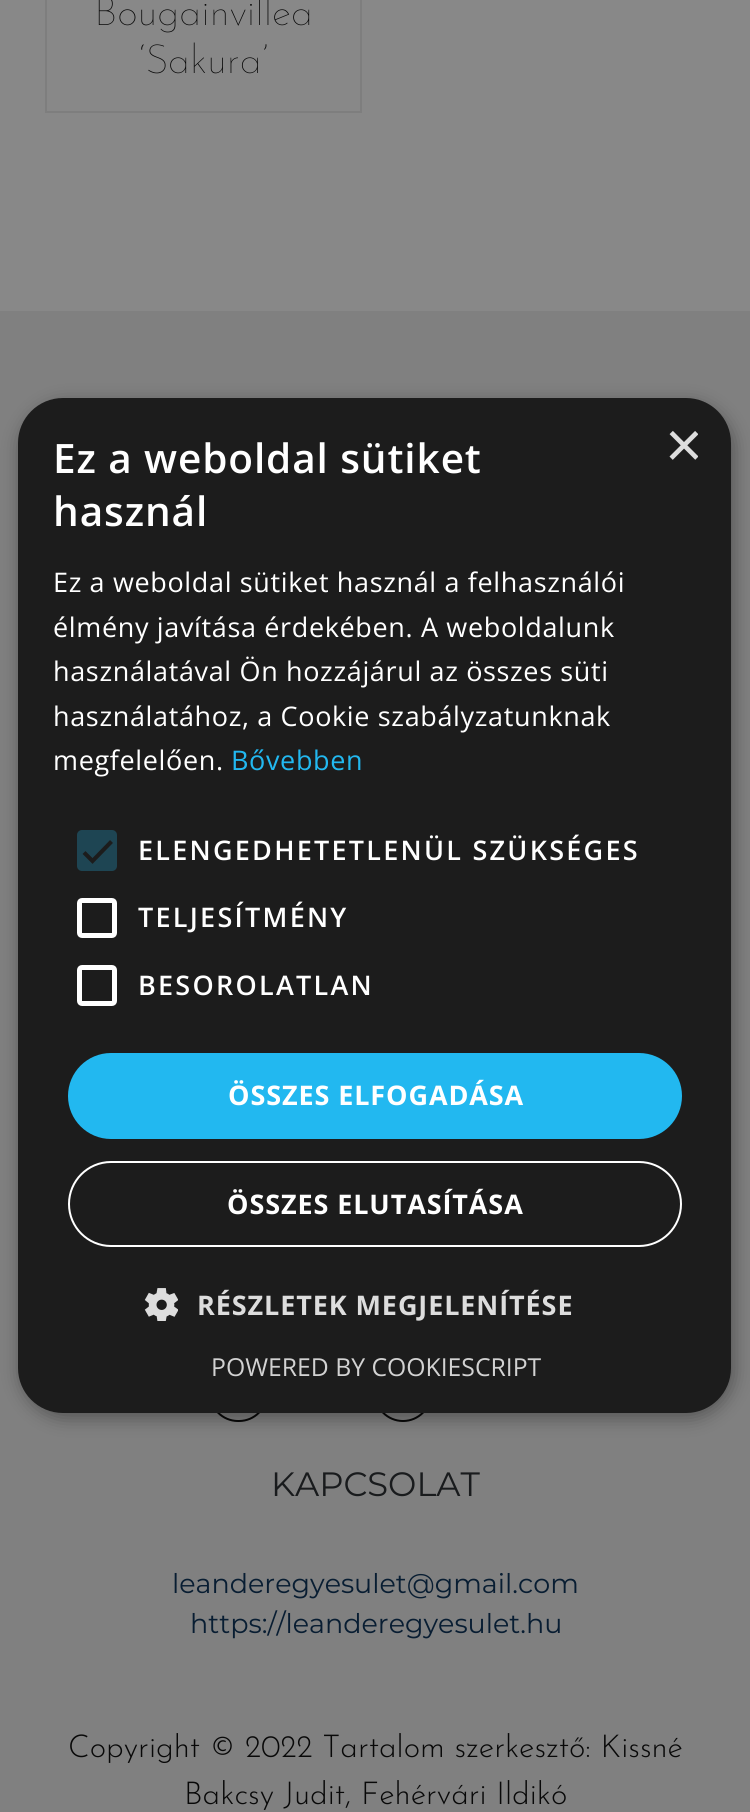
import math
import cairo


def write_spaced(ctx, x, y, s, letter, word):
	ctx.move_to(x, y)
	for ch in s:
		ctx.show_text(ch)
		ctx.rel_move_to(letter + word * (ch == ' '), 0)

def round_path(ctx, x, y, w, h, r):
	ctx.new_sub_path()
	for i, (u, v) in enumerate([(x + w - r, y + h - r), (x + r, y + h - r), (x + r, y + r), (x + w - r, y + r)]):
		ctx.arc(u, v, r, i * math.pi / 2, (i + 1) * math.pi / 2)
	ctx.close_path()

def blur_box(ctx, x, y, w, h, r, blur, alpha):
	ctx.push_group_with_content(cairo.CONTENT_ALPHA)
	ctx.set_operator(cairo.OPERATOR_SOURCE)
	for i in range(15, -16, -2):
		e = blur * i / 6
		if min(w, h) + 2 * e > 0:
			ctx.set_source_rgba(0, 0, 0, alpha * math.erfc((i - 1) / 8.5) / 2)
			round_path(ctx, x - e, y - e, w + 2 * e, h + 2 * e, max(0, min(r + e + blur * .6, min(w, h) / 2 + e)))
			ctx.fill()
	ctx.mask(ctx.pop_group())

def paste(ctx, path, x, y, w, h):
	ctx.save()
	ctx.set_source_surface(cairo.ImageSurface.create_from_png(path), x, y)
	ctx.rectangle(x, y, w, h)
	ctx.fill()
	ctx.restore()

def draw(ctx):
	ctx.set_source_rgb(0.533, 0.533, 0.533)
	ctx.paint()
	ctx.rectangle(46, -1, 315, 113)
	ctx.set_source_rgb(0.494, 0.494, 0.494)
	ctx.stroke()
	ctx.select_font_face('Josefin Sans Thin')
	ctx.set_font_size(40.5)
	ctx.set_source_rgb(0.035, 0.035, 0.035)
	ctx.move_to(94, 25)
	ctx.show_text('Bougainvillea')
	ctx.move_to(139, 73)
	ctx.show_text('‘Sakura’')
	ctx.set_source_rgb(0.502, 0.502, 0.502)
	ctx.rectangle(0, 311, 750, 1501)
	ctx.fill()
	round_path(ctx, 210, 1365, 57, 56, 28)
	ctx.set_source_rgb(0.035, 0.035, 0.035)
	ctx.stroke()
	ctx.arc(403, 1393, 28, 0, 2 * math.pi)
	ctx.stroke()
	ctx.select_font_face('Montserrat')
	ctx.set_font_size(33.75)
	ctx.set_source_rgb(0.098, 0.106, 0.114)
	ctx.move_to(271, 1496)
	ctx.show_text('KAPCSOLAT')
	ctx.set_font_size(27)
	ctx.set_source_rgb(0.035, 0.114, 0.196)
	ctx.move_to(172, 1593)
	ctx.show_text('leanderegyesulet@gmail.com')
	ctx.move_to(190, 1633)
	ctx.show_text('https://leanderegyesulet.hu')
	ctx.select_font_face('Josefin Sans Light')
	ctx.set_font_size(31.5)
	ctx.set_source_rgb(0.035, 0.035, 0.035)
	ctx.move_to(68, 1757)
	ctx.show_text('Copyright © 2022 Tartalom szerkesztő: Kissné')
	ctx.move_to(184, 1804)
	ctx.show_text('Bakcsy Judit, Fehérvári Ildikó')
	ctx.set_source_rgb(0, 0, 0)
	blur_box(ctx, 20, 403, 714, 1015, 45, 9, 0.35)
	ctx.set_source_rgb(0.11, 0.11, 0.11)
	round_path(ctx, 18, 398, 713, 1015, 45)
	ctx.fill()
	ctx.select_font_face('Open Sans SemiBold')
	ctx.set_font_size(40.5)
	ctx.set_source_rgb(1, 1, 1)
	write_spaced(ctx, 53, 473, 'Ez a weboldal sütiket', 0.9, 0)
	write_spaced(ctx, 53, 526, 'használ', 0.9, 0)
	ctx.save()
	ctx.rectangle(664, 430, 34, 34)
	ctx.clip()
	ctx.select_font_face('Liberation Sans')
	ctx.set_font_size(65)
	ctx.set_source_rgb(0.867, 0.867, 0.867)
	ctx.move_to(665, 467)
	ctx.show_text('×')
	ctx.restore()
	ctx.select_font_face('Open Sans')
	ctx.set_font_size(27)
	for x, y, s in [
		(53, 592, 'Ez a weboldal sütiket használ a felhasználói'),
		(53, 637, 'élmény javítása érdekében. A weboldalunk'),
		(53, 681, 'használatával Ön hozzájárul az összes süti'),
		(53, 726, 'használatához, a Cookie szabályzatunknak'),
		(53, 770, 'megfelelően.'),
	]:
		write_spaced(ctx, x, y, s, 0.65, 0)
	ctx.set_source_rgb(0.133, 0.722, 0.941)
	write_spaced(ctx, 231, 770, 'Bővebben', 0.65, 0)
	ctx.set_source_rgb(0.118, 0.271, 0.325)
	round_path(ctx, 77, 830, 40, 41, 5)
	ctx.fill()
	ctx.new_path()
	ctx.move_to(84, 852.5)
	ctx.line_to(92.5, 861)
	ctx.line_to(111.5, 841.5)
	ctx.set_source_rgb(0.11, 0.11, 0.11)
	ctx.set_line_width(4.1)
	ctx.stroke()
	ctx.select_font_face('Open Sans SemiBold')
	ctx.set_source_rgb(1, 1, 1)
	write_spaced(ctx, 138, 860, 'ELENGEDHETETLENÜL SZÜKSÉGES', 2.25, 0)
	round_path(ctx, 79.5, 900.5, 35, 35, 2.5)
	ctx.set_line_width(5)
	ctx.stroke()
	write_spaced(ctx, 138, 927, 'TELJESÍTMÉNY', 2.25, 0)
	round_path(ctx, 79.5, 967.5, 35, 36, 2.5)
	ctx.stroke()
	write_spaced(ctx, 138, 995, 'BESOROLATLAN', 2.25, 0)
	ctx.set_source_rgb(0.133, 0.722, 0.941)
	round_path(ctx, 68, 1053, 614, 86, 43)
	ctx.fill()
	ctx.select_font_face('Open Sans', cairo.FONT_SLANT_NORMAL, cairo.FONT_WEIGHT_BOLD)
	ctx.set_source_rgb(1, 1, 1)
	write_spaced(ctx, 228, 1105, 'ÖSSZES ELFOGADÁSA', 0.9, 0)
	round_path(ctx, 69, 1162, 612, 84, 42)
	ctx.set_line_width(2)
	ctx.stroke()
	write_spaced(ctx, 227, 1214, 'ÖSSZES ELUTASÍTÁSA', 0.9, 0)
	paste(ctx, 'media/1.png', 144, 1288, 34, 33)
	ctx.set_source_rgb(0.867, 0.867, 0.867)
	write_spaced(ctx, 197, 1315, 'RÉSZLETEK MEGJELENÍTÉSE', 0.9, 0)
	ctx.select_font_face('Open Sans')
	ctx.set_font_size(24.75)
	ctx.set_source_rgb(0.824, 0.824, 0.824)
	ctx.move_to(211, 1376)
	ctx.show_text('POWERED BY COOKIESCRIPT')


surface = cairo.ImageSurface(cairo.FORMAT_RGB24, 750, 1812)
ctx = cairo.Context(surface)
options = cairo.FontOptions()
options.set_hint_metrics(cairo.HINT_METRICS_OFF)
options.set_hint_style(cairo.HINT_STYLE_NONE)
ctx.set_font_options(options)
ctx.set_miter_limit(4)
draw(ctx)
surface.write_to_png('image.png')
